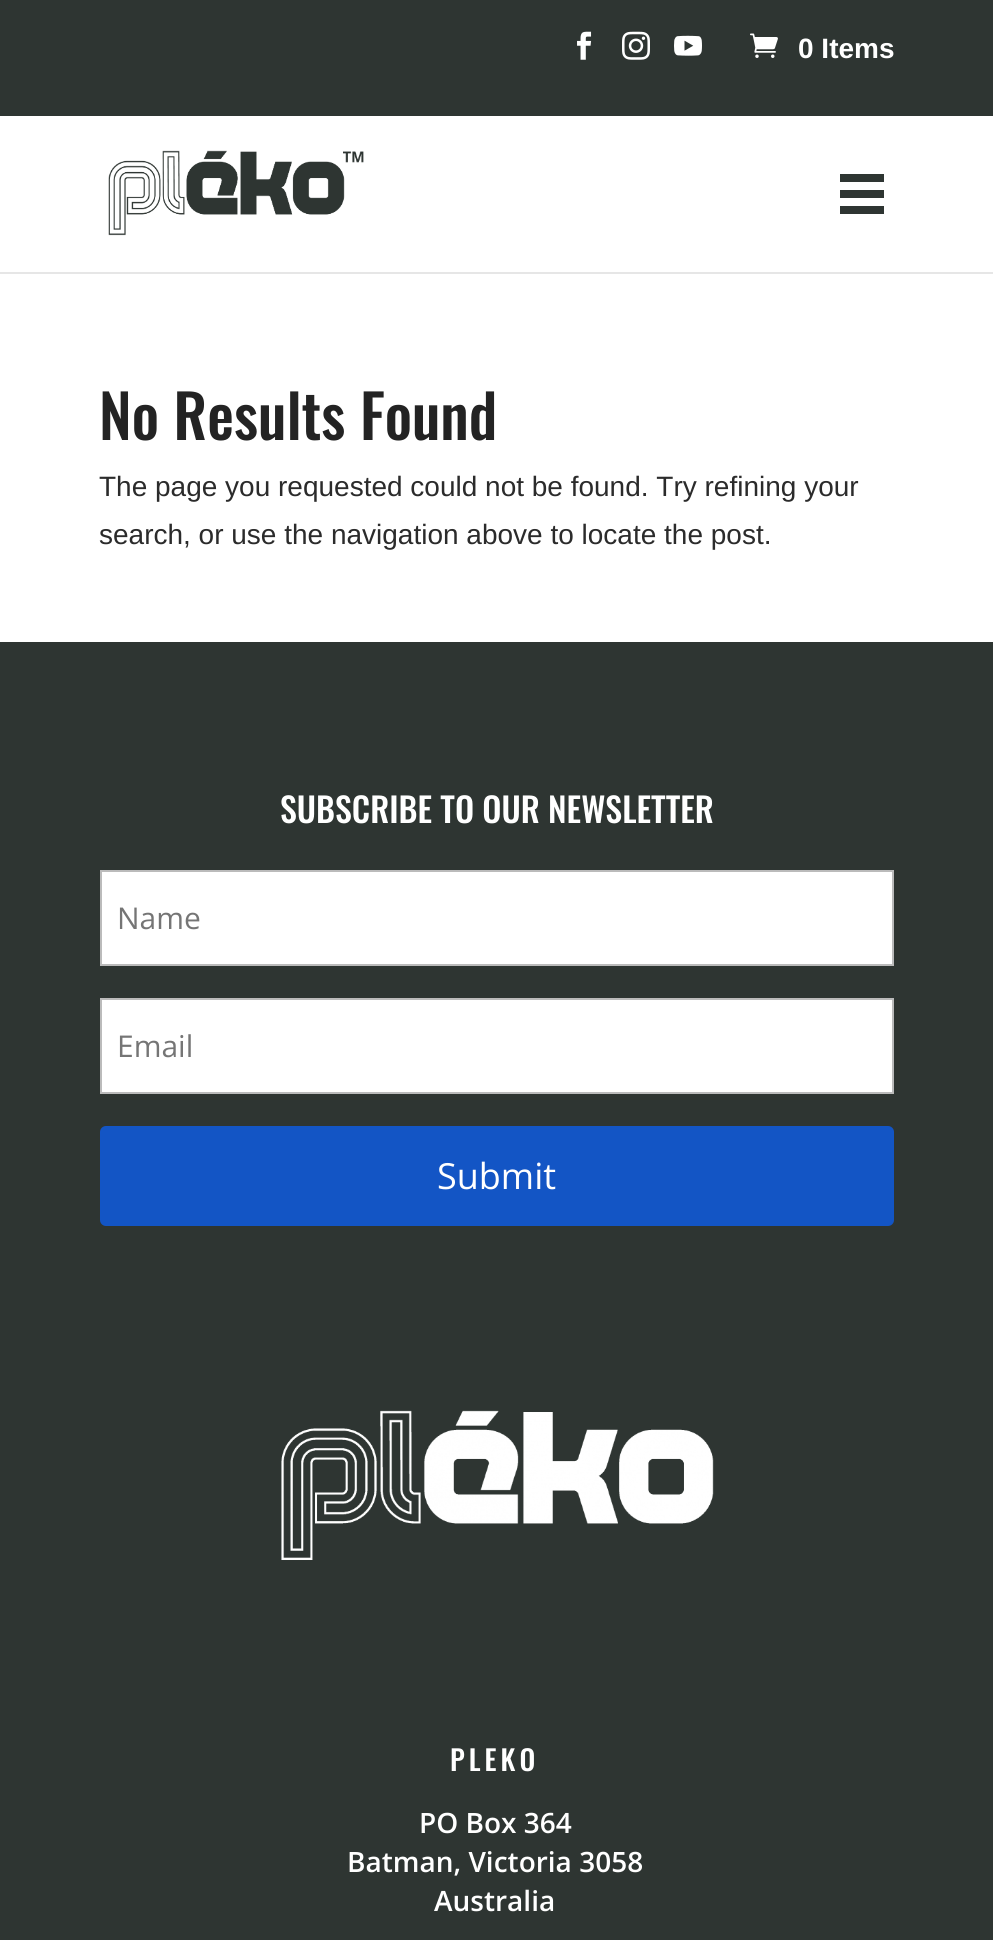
import math
import cairo


def write_spaced(ctx, x, y, s, letter, word):
	ctx.move_to(x, y)
	for ch in s:
		ctx.show_text(ch)
		ctx.rel_move_to(letter + word * (ch == ' '), 0)

def round_path(ctx, x, y, w, h, r):
	ctx.new_sub_path()
	for i, (u, v) in enumerate([(x + w - r, y + h - r), (x + r, y + h - r), (x + r, y + r), (x + w - r, y + r)]):
		ctx.arc(u, v, r, i * math.pi / 2, (i + 1) * math.pi / 2)
	ctx.close_path()

def paste(ctx, path, x, y, w, h):
	ctx.save()
	ctx.set_source_surface(cairo.ImageSurface.create_from_png(path), x, y)
	ctx.rectangle(x, y, w, h)
	ctx.fill()
	ctx.restore()

def draw(ctx):
	ctx.set_source_rgb(1, 1, 1)
	ctx.paint()
	ctx.set_source_rgb(0.18, 0.208, 0.196)
	ctx.rectangle(0, 0, 993, 116)
	ctx.fill()
	paste(ctx, 'media/1.png', 577, 31, 15, 29)
	paste(ctx, 'media/2.png', 622, 31, 28, 29)
	paste(ctx, 'media/3.png', 674, 35, 28, 21)
	paste(ctx, 'media/4.png', 750, 33, 28, 25)
	ctx.select_font_face('Liberation Sans', cairo.FONT_SLANT_NORMAL, cairo.FONT_WEIGHT_BOLD)
	ctx.set_font_size(28)
	ctx.set_source_rgb(1, 1, 1)
	ctx.move_to(798, 58)
	ctx.show_text('0 Items')
	ctx.set_source_rgb(0.902, 0.902, 0.902)
	ctx.rectangle(0, 272, 993, 2)
	ctx.fill()
	paste(ctx, 'media/5.png', 108, 150, 256, 86)
	ctx.set_source_rgb(0.18, 0.208, 0.196)
	ctx.rectangle(840, 190, 44, 8)
	ctx.rectangle(840, 174, 44, 8)
	ctx.rectangle(840, 206, 44, 8)
	ctx.fill()
	ctx.select_font_face('Oswald Medium')
	ctx.set_font_size(60)
	ctx.set_source_rgb(0.137, 0.137, 0.137)
	ctx.move_to(99, 440)
	ctx.show_text('No Results Found')
	ctx.select_font_face('Liberation Sans')
	ctx.set_font_size(28)
	ctx.set_source_rgb(0.169, 0.169, 0.169)
	ctx.move_to(99, 496)
	ctx.show_text('The page you requested could not be found. Try refining your')
	ctx.move_to(99, 544)
	ctx.show_text('search, or use the navigation above to locate the post.')
	ctx.set_source_rgb(0.18, 0.208, 0.196)
	ctx.rectangle(0, 642, 993, 1298)
	ctx.fill()
	ctx.select_font_face('Oswald Medium')
	ctx.set_font_size(34)
	ctx.set_source_rgb(1, 1, 1)
	ctx.move_to(280, 823)
	ctx.show_text('SUBSCRIBE TO OUR NEWSLETTER')
	ctx.rectangle(101, 871, 792, 94)
	ctx.fill_preserve()
	ctx.set_source_rgb(0.733, 0.733, 0.733)
	ctx.stroke()
	ctx.select_font_face('Open Sans')
	ctx.set_font_size(30)
	ctx.set_source_rgb(0.459, 0.459, 0.459)
	ctx.move_to(117, 929)
	ctx.show_text('Name')
	ctx.set_source_rgb(1, 1, 1)
	ctx.rectangle(101, 999, 792, 94)
	ctx.fill_preserve()
	ctx.set_source_rgb(0.733, 0.733, 0.733)
	ctx.stroke()
	ctx.set_source_rgb(0.459, 0.459, 0.459)
	ctx.move_to(117, 1057)
	ctx.show_text('Email')
	ctx.set_source_rgb(0.075, 0.333, 0.773)
	round_path(ctx, 100, 1126, 794, 100, 6)
	ctx.fill()
	ctx.set_font_size(36)
	ctx.set_source_rgb(1, 1, 1)
	ctx.move_to(437, 1189)
	ctx.show_text('Submit')
	paste(ctx, 'media/6.png', 281, 1410, 433, 150)
	ctx.select_font_face('Oswald Medium')
	ctx.set_font_size(28)
	write_spaced(ctx, 450, 1771, 'PLEKO', 4, 0)
	ctx.select_font_face('Open Sans SemiBold')
	for x, y, s in [
		(419, 1833, 'PO Box 364'),
		(347, 1872, 'Batman, Victoria 3058'),
		(434, 1911, 'Australia'),
	]:
		ctx.move_to(x, y)
		ctx.show_text(s)


surface = cairo.ImageSurface(cairo.FORMAT_RGB24, 993, 1940)
ctx = cairo.Context(surface)
options = cairo.FontOptions()
options.set_hint_metrics(cairo.HINT_METRICS_OFF)
options.set_hint_style(cairo.HINT_STYLE_NONE)
ctx.set_font_options(options)
ctx.set_miter_limit(4)
draw(ctx)
surface.write_to_png('image.png')
